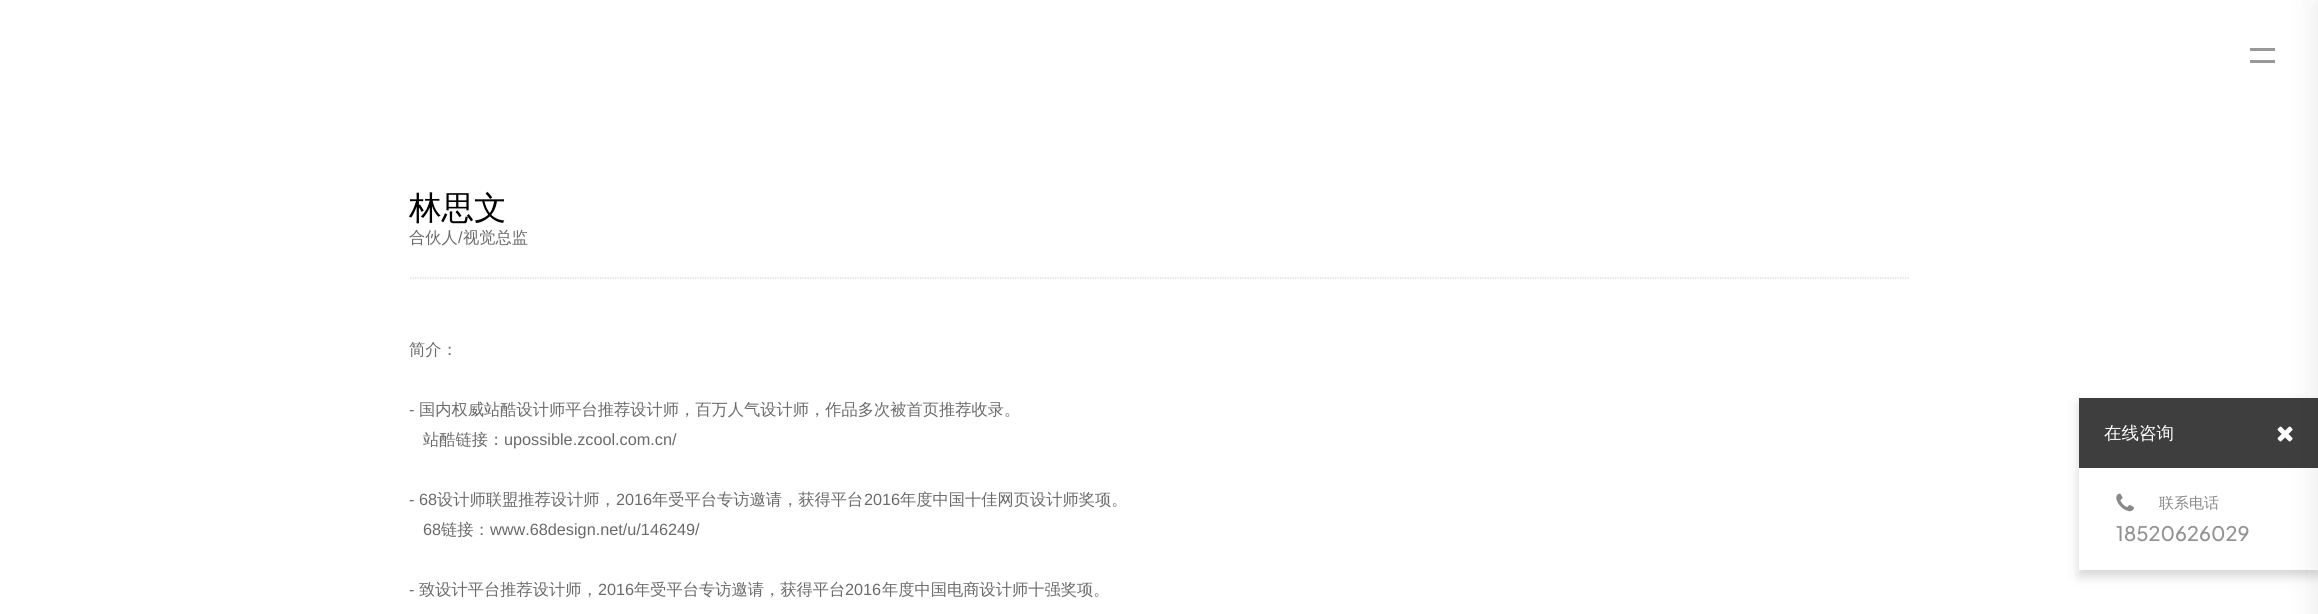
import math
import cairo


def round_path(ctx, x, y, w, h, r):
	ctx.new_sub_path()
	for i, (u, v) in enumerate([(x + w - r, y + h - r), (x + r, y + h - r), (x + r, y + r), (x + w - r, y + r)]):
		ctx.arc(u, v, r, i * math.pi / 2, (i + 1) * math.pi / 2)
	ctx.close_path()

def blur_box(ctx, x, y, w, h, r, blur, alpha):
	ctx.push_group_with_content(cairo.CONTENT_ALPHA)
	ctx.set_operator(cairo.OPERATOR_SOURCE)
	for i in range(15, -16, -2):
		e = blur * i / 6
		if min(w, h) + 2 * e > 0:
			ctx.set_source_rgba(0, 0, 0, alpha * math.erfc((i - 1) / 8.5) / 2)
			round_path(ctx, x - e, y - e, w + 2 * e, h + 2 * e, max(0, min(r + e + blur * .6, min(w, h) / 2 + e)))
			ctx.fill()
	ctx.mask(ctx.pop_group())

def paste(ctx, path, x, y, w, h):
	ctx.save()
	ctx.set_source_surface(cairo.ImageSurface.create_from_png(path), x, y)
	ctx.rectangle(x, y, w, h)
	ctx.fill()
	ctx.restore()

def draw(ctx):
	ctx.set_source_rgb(1, 1, 1)
	ctx.paint()
	ctx.select_font_face('WenQuanYi Zen Hei Medium')
	ctx.set_font_size(32.5)
	ctx.set_source_rgb(0, 0, 0)
	ctx.move_to(409, 219)
	ctx.show_text('林思文')
	ctx.set_font_size(16.25)
	ctx.set_source_rgb(0.416, 0.416, 0.416)
	ctx.move_to(409, 243)
	ctx.show_text('合伙人')
	ctx.select_font_face('Liberation Sans')
	ctx.move_to(458, 243)
	ctx.show_text('/')
	ctx.select_font_face('WenQuanYi Zen Hei Medium')
	ctx.move_to(463, 243)
	ctx.show_text('视觉总监')
	ctx.new_path()
	ctx.move_to(410, 278)
	ctx.line_to(1910, 278)
	ctx.set_source_rgb(0.827, 0.827, 0.827)
	ctx.set_line_width(1.2)
	ctx.set_dash([1.25, 1.25])
	ctx.stroke()
	ctx.set_source_rgb(0.416, 0.416, 0.416)
	ctx.move_to(409, 355)
	ctx.show_text('简介：')
	ctx.select_font_face('Liberation Sans')
	ctx.move_to(409, 415)
	ctx.show_text('-')
	ctx.select_font_face('WenQuanYi Zen Hei Medium')
	ctx.move_to(419, 415)
	ctx.show_text('国内权威站酷设计师平台推荐设计师，百万人气设计师，作品多次被首页推荐收录。')
	ctx.move_to(423, 445)
	ctx.show_text('站酷链接：')
	ctx.select_font_face('Liberation Sans')
	ctx.move_to(504, 445)
	ctx.show_text('upossible.zcool.com.cn/')
	ctx.move_to(409, 505)
	ctx.show_text('- 68')
	ctx.select_font_face('WenQuanYi Zen Hei Medium')
	ctx.move_to(437, 505)
	ctx.show_text('设计师联盟推荐设计师，')
	ctx.select_font_face('Liberation Sans')
	ctx.move_to(616, 505)
	ctx.show_text('2016')
	ctx.select_font_face('WenQuanYi Zen Hei Medium')
	ctx.move_to(652, 505)
	ctx.show_text('年受平台专访邀请，获得平台')
	ctx.select_font_face('Liberation Sans')
	ctx.move_to(864, 505)
	ctx.show_text('2016')
	ctx.select_font_face('WenQuanYi Zen Hei Medium')
	ctx.move_to(900, 505)
	ctx.show_text('年度中国十佳网页设计师奖项。')
	ctx.select_font_face('Liberation Sans')
	ctx.move_to(423, 535)
	ctx.show_text('68')
	ctx.select_font_face('WenQuanYi Zen Hei Medium')
	ctx.move_to(441, 535)
	ctx.show_text('链接：')
	ctx.select_font_face('Liberation Sans')
	ctx.move_to(490, 535)
	ctx.show_text('www.68design.net/u/146249/')
	ctx.move_to(409, 595)
	ctx.show_text('-')
	ctx.select_font_face('WenQuanYi Zen Hei Medium')
	ctx.move_to(419, 595)
	ctx.show_text('致设计平台推荐设计师，')
	ctx.select_font_face('Liberation Sans')
	ctx.move_to(598, 595)
	ctx.show_text('2016')
	ctx.select_font_face('WenQuanYi Zen Hei Medium')
	ctx.move_to(634, 595)
	ctx.show_text('年受平台专访邀请，获得平台')
	ctx.select_font_face('Liberation Sans')
	ctx.move_to(845, 595)
	ctx.show_text('2016')
	ctx.select_font_face('WenQuanYi Zen Hei Medium')
	ctx.move_to(882, 595)
	ctx.show_text('年度中国电商设计师十强奖项。')
	ctx.set_source_rgb(0.016, 0, 0)
	blur_box(ctx, 2079, 404, 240, 172, 0, 5.5, 0.17)
	ctx.set_source_rgb(1, 1, 1)
	ctx.rectangle(2079, 468, 239, 102)
	ctx.fill()
	ctx.set_source_rgb(0.243, 0.243, 0.243)
	ctx.rectangle(2079, 398, 239, 70)
	ctx.fill()
	ctx.set_font_size(17.5)
	ctx.set_source_rgb(1, 1, 1)
	ctx.move_to(2104, 439)
	ctx.show_text('在线咨询')
	paste(ctx, 'media/1.png', 2277, 426, 16, 16)
	paste(ctx, 'media/2.png', 2116, 493, 18, 19)
	ctx.set_font_size(15)
	ctx.set_source_rgb(0.537, 0.537, 0.537)
	ctx.move_to(2159, 508)
	ctx.show_text('联系电话')
	ctx.select_font_face('Plus Jakarta Sans Medium')
	ctx.set_font_size(20)
	ctx.set_source_rgb(0.573, 0.573, 0.573)
	ctx.move_to(2116, 541)
	ctx.show_text('18520626029')
	ctx.set_source_rgb(0, 0, 0)
	blur_box(ctx, 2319, 3, 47, 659, 0, 16, 0.1)
	ctx.set_source_rgb(0.6, 0.6, 0.6)
	ctx.rectangle(2250, 48, 25, 3)
	ctx.fill()
	ctx.rectangle(2250, 60, 25, 3)
	ctx.fill()


surface = cairo.ImageSurface(cairo.FORMAT_RGB24, 2318, 614)
ctx = cairo.Context(surface)
options = cairo.FontOptions()
options.set_hint_metrics(cairo.HINT_METRICS_OFF)
options.set_hint_style(cairo.HINT_STYLE_NONE)
ctx.set_font_options(options)
ctx.set_miter_limit(4)
draw(ctx)
surface.write_to_png('image.png')
